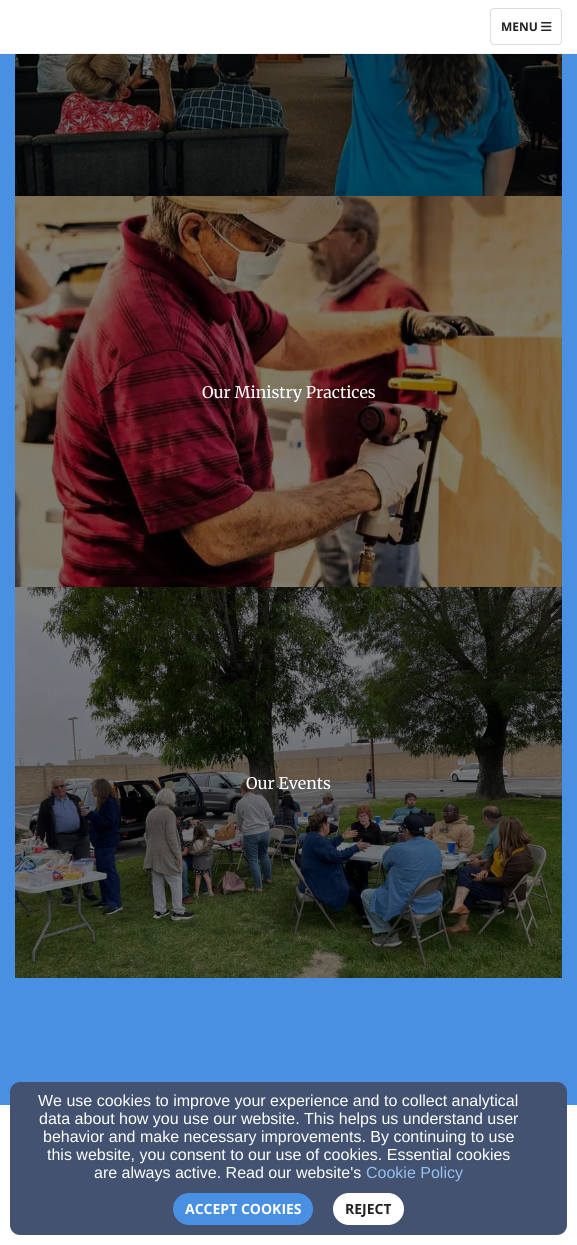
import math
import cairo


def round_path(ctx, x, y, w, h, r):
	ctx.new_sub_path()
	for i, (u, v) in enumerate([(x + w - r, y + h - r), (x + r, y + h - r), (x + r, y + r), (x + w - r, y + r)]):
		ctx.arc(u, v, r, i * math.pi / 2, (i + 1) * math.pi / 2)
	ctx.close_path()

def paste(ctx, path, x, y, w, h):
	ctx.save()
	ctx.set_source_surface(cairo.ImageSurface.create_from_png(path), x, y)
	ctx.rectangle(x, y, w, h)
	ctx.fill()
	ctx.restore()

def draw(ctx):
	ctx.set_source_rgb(1, 1, 1)
	ctx.paint()
	ctx.set_source_rgb(0.957, 0.957, 0.957)
	ctx.rectangle(0, 53, 577, 1)
	ctx.fill()
	round_path(ctx, 490.5, 8.5, 71, 36, 3.5)
	ctx.set_source_rgb(0.867, 0.867, 0.867)
	ctx.set_line_width(1)
	ctx.stroke()
	ctx.select_font_face('Open Sans', cairo.FONT_SLANT_NORMAL, cairo.FONT_WEIGHT_BOLD)
	ctx.set_font_size(12)
	ctx.set_source_rgb(0.133, 0.133, 0.133)
	ctx.move_to(501, 31)
	ctx.show_text('MENU')
	paste(ctx, 'media/1.png', 541, 22, 11, 9)
	ctx.set_source_rgb(0.29, 0.565, 0.886)
	ctx.rectangle(0, 54, 577, 1051)
	ctx.fill()
	paste(ctx, 'media/2.png', 15, 54, 547, 142)
	paste(ctx, 'media/3.png', 15, 196, 547, 391)
	ctx.select_font_face('Merriweather Light')
	ctx.set_font_size(16)
	ctx.set_source_rgb(1, 1, 1)
	ctx.move_to(202, 398)
	ctx.show_text('Our Ministry Practices')
	paste(ctx, 'media/4.png', 15, 587, 547, 391)
	ctx.move_to(246, 789)
	ctx.show_text('Our Events')
	ctx.set_source_rgb(0.263, 0.322, 0.439)
	round_path(ctx, 10, 1082, 557, 153, 10)
	ctx.fill()
	ctx.select_font_face('Liberation Sans')
	ctx.set_source_rgb(1, 1, 1)
	for x, y, s in [
		(38, 1106, 'We use cookies to improve your experience and to collect analytical'),
		(39, 1124, 'data about how you use our website. This helps us understand user'),
		(43, 1142, 'behavior and make necessary improvements. By continuing to use'),
		(47, 1160, 'this website, you consent to our use of cookies. Essential cookies'),
		(94, 1178, 'are always active. Read our website\'s'),
	]:
		ctx.move_to(x, y)
		ctx.show_text(s)
	ctx.set_source_rgb(0.58, 0.753, 0.953)
	ctx.move_to(366, 1178)
	ctx.show_text('Cookie Policy')
	ctx.set_source_rgb(0.29, 0.565, 0.886)
	round_path(ctx, 173, 1193, 140, 32, 16)
	ctx.fill()
	ctx.select_font_face('Open Sans', cairo.FONT_SLANT_NORMAL, cairo.FONT_WEIGHT_BOLD)
	ctx.set_font_size(14)
	ctx.set_source_rgb(1, 1, 1)
	ctx.move_to(185, 1214)
	ctx.show_text('ACCEPT COOKIES')
	round_path(ctx, 333, 1193, 71, 32, 16)
	ctx.fill()
	ctx.set_source_rgb(0.133, 0.133, 0.133)
	ctx.move_to(345, 1214)
	ctx.show_text('REJECT')


surface = cairo.ImageSurface(cairo.FORMAT_RGB24, 577, 1245)
ctx = cairo.Context(surface)
options = cairo.FontOptions()
options.set_hint_metrics(cairo.HINT_METRICS_OFF)
options.set_hint_style(cairo.HINT_STYLE_NONE)
ctx.set_font_options(options)
ctx.set_miter_limit(4)
draw(ctx)
surface.write_to_png('image.png')
